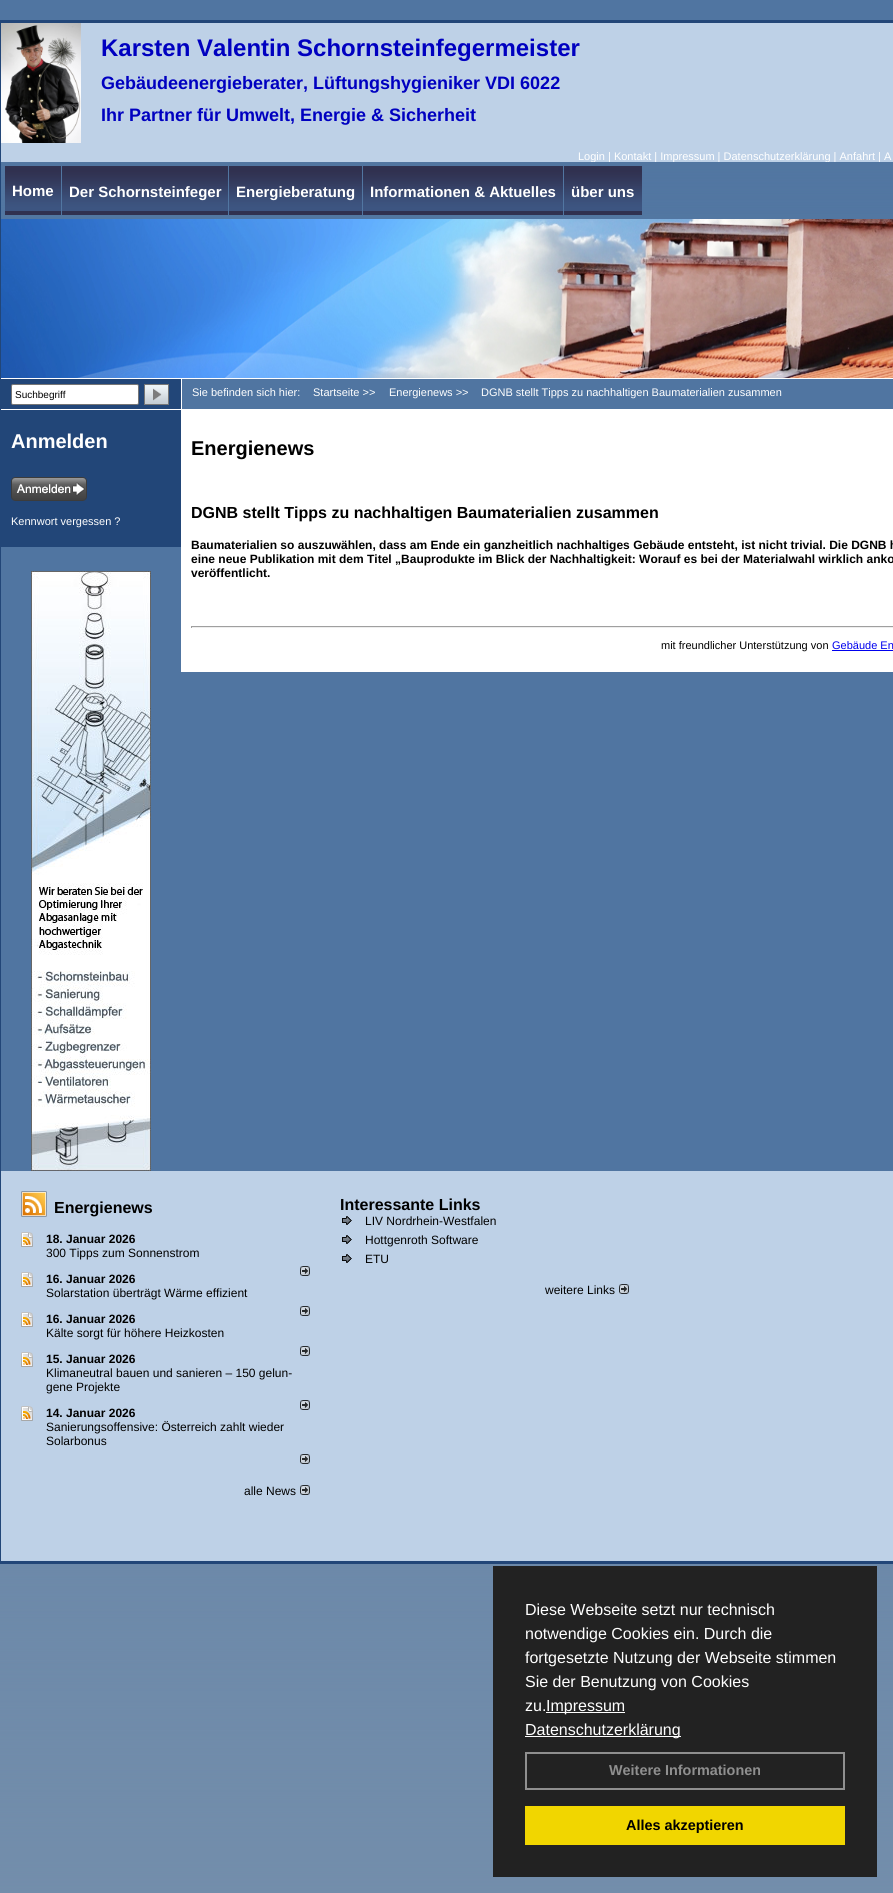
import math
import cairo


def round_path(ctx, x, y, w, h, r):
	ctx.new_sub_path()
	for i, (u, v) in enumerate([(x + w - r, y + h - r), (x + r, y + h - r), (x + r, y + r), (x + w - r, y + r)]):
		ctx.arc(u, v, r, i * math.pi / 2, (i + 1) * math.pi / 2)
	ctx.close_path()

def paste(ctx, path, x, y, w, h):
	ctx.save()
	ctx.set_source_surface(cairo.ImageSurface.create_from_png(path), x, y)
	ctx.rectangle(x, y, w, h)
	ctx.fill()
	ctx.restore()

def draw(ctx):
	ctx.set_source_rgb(1, 1, 1)
	ctx.paint()
	paste(ctx, 'media/1.png', 0, 0, 893, 1893)
	ctx.set_source_rgb(0.133, 0.275, 0.471)
	ctx.rectangle(0, 1561, 893, 3)
	ctx.rectangle(0, 20, 1, 1544)
	ctx.fill()
	ctx.set_source_rgb(0.745, 0.82, 0.906)
	ctx.rectangle(1, 23, 892, 139)
	ctx.fill()
	ctx.set_source_rgb(0.133, 0.275, 0.471)
	ctx.rectangle(1, 20, 892, 3)
	ctx.fill()
	paste(ctx, 'media/2.png', 1, 23, 80, 120)
	ctx.select_font_face('Liberation Sans', cairo.FONT_SLANT_NORMAL, cairo.FONT_WEIGHT_BOLD)
	ctx.set_font_size(24)
	ctx.set_source_rgb(0, 0, 0.753)
	ctx.move_to(101, 56)
	ctx.show_text('Karsten Valentin Schornsteinfegermeister')
	ctx.set_font_size(18)
	ctx.move_to(101, 89)
	ctx.show_text('Gebäudeenergieberater, Lüftungshygieniker VDI 6022')
	ctx.move_to(101, 121)
	ctx.show_text('Ihr Partner für Umwelt, Energie & Sicherheit')
	ctx.select_font_face('Liberation Sans')
	ctx.set_font_size(11)
	ctx.set_source_rgb(1, 1, 1)
	ctx.move_to(578, 160)
	ctx.show_text('Login | Kontakt | Impressum | Datenschutzerklärung | Anfahrt | A')
	ctx.set_source_rgb(0.314, 0.459, 0.631)
	ctx.rectangle(592, 162, 289, 1)
	ctx.fill()
	paste(ctx, 'media/3.png', 5, 166, 56, 49)
	ctx.select_font_face('Liberation Sans', cairo.FONT_SLANT_NORMAL, cairo.FONT_WEIGHT_BOLD)
	ctx.set_font_size(15)
	ctx.set_source_rgb(1, 1, 1)
	ctx.move_to(12, 196)
	ctx.show_text('Home')
	paste(ctx, 'media/4.png', 62, 166, 166, 49)
	ctx.move_to(69, 197)
	ctx.show_text('Der Schornsteinfeger')
	paste(ctx, 'media/5.png', 229, 166, 133, 49)
	ctx.move_to(236, 197)
	ctx.show_text('Energieberatung')
	paste(ctx, 'media/6.png', 363, 166, 200, 49)
	ctx.move_to(370, 197)
	ctx.show_text('Informationen & Aktuelles')
	paste(ctx, 'media/7.png', 564, 166, 78, 49)
	ctx.move_to(571, 197)
	ctx.show_text('über uns')
	paste(ctx, 'media/8.png', 1, 219, 892, 159)
	ctx.set_source_rgb(0.133, 0.275, 0.471)
	ctx.rectangle(1, 379, 180, 30)
	ctx.fill()
	ctx.set_source_rgb(1, 1, 1)
	ctx.rectangle(1, 378, 892, 1)
	ctx.rectangle(181, 378, 1, 32)
	ctx.rectangle(1, 409, 892, 1)
	ctx.fill()
	round_path(ctx, 11.5, 384.5, 127, 20, 1.5)
	ctx.fill_preserve()
	ctx.set_source_rgb(0.463, 0.463, 0.463)
	ctx.set_line_width(1)
	ctx.stroke()
	ctx.select_font_face('Liberation Sans')
	ctx.set_font_size(10)
	ctx.set_source_rgb(0, 0, 0)
	ctx.move_to(15, 398)
	ctx.show_text('Suchbegriff')
	paste(ctx, 'media/9.png', 144, 384, 25, 21)
	ctx.set_source_rgb(0.314, 0.459, 0.631)
	ctx.rectangle(182, 379, 711, 30)
	ctx.fill()
	ctx.set_font_size(11)
	ctx.set_source_rgb(1, 1, 1)
	for x, y, s in [
		(192, 396, 'Sie befinden sich hier:'),
		(313, 396, 'Startseite >>'),
		(389, 396, 'Energienews >>'),
		(481, 396, 'DGNB stellt Tipps zu nachhaltigen Baumaterialien zusammen'),
	]:
		ctx.move_to(x, y)
		ctx.show_text(s)
	ctx.set_source_rgb(0.314, 0.459, 0.631)
	ctx.rectangle(1, 547, 892, 624)
	ctx.fill()
	ctx.set_source_rgb(0.133, 0.275, 0.471)
	ctx.rectangle(1, 410, 180, 137)
	ctx.fill()
	ctx.select_font_face('Liberation Sans', cairo.FONT_SLANT_NORMAL, cairo.FONT_WEIGHT_BOLD)
	ctx.set_font_size(20)
	ctx.set_source_rgb(1, 1, 1)
	ctx.move_to(11, 448)
	ctx.show_text('Anmelden')
	paste(ctx, 'media/10.png', 11, 477, 76, 24)
	ctx.select_font_face('Liberation Sans')
	ctx.set_font_size(11)
	ctx.move_to(11, 525)
	ctx.show_text('Kennwort vergessen ?')
	paste(ctx, 'media/11.png', 31, 571, 120, 600)
	ctx.rectangle(181, 410, 712, 262)
	ctx.fill()
	ctx.select_font_face('Liberation Sans', cairo.FONT_SLANT_NORMAL, cairo.FONT_WEIGHT_BOLD)
	ctx.set_font_size(20)
	ctx.set_source_rgb(0, 0, 0)
	ctx.move_to(191, 455)
	ctx.show_text('Energienews')
	ctx.set_font_size(16)
	ctx.move_to(191, 518)
	ctx.show_text('DGNB stellt Tipps zu nachhaltigen Baumaterialien zusammen')
	ctx.set_font_size(12)
	for x, y, s in [
		(191, 549, 'Baumaterialien so auszuwählen, dass am Ende ein ganzheitlich nachhaltiges Gebäude entsteht, ist nicht trivial. Die DGNB h'),
		(191, 563, 'eine neue Publikation mit dem Titel „Bauprodukte im Blick der Nachhaltigkeit: Worauf es bei der Materialwahl wirklich anko'),
		(191, 577, 'veröffentlicht.'),
	]:
		ctx.move_to(x, y)
		ctx.show_text(s)
	ctx.set_source_rgb(0.624, 0.624, 0.624)
	ctx.rectangle(191, 626, 702, 1)
	ctx.fill()
	ctx.set_source_rgb(0.933, 0.933, 0.933)
	ctx.rectangle(191, 627, 702, 1)
	ctx.fill()
	ctx.set_source_rgb(0.624, 0.624, 0.624)
	ctx.rectangle(191, 626, 1, 2)
	ctx.fill()
	ctx.select_font_face('Liberation Sans')
	ctx.set_font_size(11)
	ctx.set_source_rgb(0, 0, 0)
	ctx.move_to(661, 649)
	ctx.show_text('mit freundlicher Unterstützung von')
	ctx.set_source_rgb(0, 0, 0.933)
	ctx.move_to(832, 649)
	ctx.show_text('Gebäude En')
	ctx.rectangle(832, 650, 61, 1)
	ctx.fill()
	ctx.set_source_rgb(0.745, 0.82, 0.906)
	ctx.rectangle(1, 1171, 892, 390)
	ctx.fill()
	paste(ctx, 'media/12.png', 21, 1191, 26, 26)
	ctx.select_font_face('Liberation Sans', cairo.FONT_SLANT_NORMAL, cairo.FONT_WEIGHT_BOLD)
	ctx.set_font_size(16)
	ctx.set_source_rgb(0, 0, 0)
	ctx.move_to(54, 1213)
	ctx.show_text('Energienews')
	paste(ctx, 'media/13.png', 21, 1232, 12, 15)
	ctx.set_font_size(12)
	ctx.move_to(46, 1243)
	ctx.show_text('18. Januar 2026')
	ctx.select_font_face('Liberation Sans')
	ctx.move_to(46, 1257)
	ctx.show_text('300 Tipps zum Sonnenstrom')
	paste(ctx, 'media/14.png', 300, 1266, 10, 10)
	paste(ctx, 'media/13.png', 21, 1272, 12, 15)
	ctx.select_font_face('Liberation Sans', cairo.FONT_SLANT_NORMAL, cairo.FONT_WEIGHT_BOLD)
	ctx.move_to(46, 1283)
	ctx.show_text('16. Januar 2026')
	ctx.select_font_face('Liberation Sans')
	ctx.move_to(46, 1297)
	ctx.show_text('Solarstation überträgt Wärme effizient')
	paste(ctx, 'media/14.png', 300, 1306, 10, 10)
	paste(ctx, 'media/13.png', 21, 1312, 12, 15)
	ctx.select_font_face('Liberation Sans', cairo.FONT_SLANT_NORMAL, cairo.FONT_WEIGHT_BOLD)
	ctx.move_to(46, 1323)
	ctx.show_text('16. Januar 2026')
	ctx.select_font_face('Liberation Sans')
	ctx.move_to(46, 1337)
	ctx.show_text('Kälte sorgt für höhere Heizkosten')
	paste(ctx, 'media/14.png', 300, 1346, 10, 10)
	paste(ctx, 'media/13.png', 21, 1352, 12, 15)
	ctx.select_font_face('Liberation Sans', cairo.FONT_SLANT_NORMAL, cairo.FONT_WEIGHT_BOLD)
	ctx.move_to(46, 1363)
	ctx.show_text('15. Januar 2026')
	ctx.select_font_face('Liberation Sans')
	ctx.move_to(46, 1377)
	ctx.show_text('Klimaneutral bauen und sanieren – 150 gelun-')
	ctx.move_to(46, 1391)
	ctx.show_text('gene Projekte')
	paste(ctx, 'media/14.png', 300, 1400, 10, 10)
	paste(ctx, 'media/13.png', 21, 1406, 12, 15)
	ctx.select_font_face('Liberation Sans', cairo.FONT_SLANT_NORMAL, cairo.FONT_WEIGHT_BOLD)
	ctx.move_to(46, 1417)
	ctx.show_text('14. Januar 2026')
	ctx.select_font_face('Liberation Sans')
	ctx.move_to(46, 1431)
	ctx.show_text('Sanierungsoffensive: Österreich zahlt wieder')
	ctx.move_to(46, 1445)
	ctx.show_text('Solarbonus')
	paste(ctx, 'media/14.png', 300, 1454, 10, 10)
	ctx.move_to(244, 1495)
	ctx.show_text('alle News')
	paste(ctx, 'media/14.png', 300, 1485, 10, 10)
	ctx.select_font_face('Liberation Sans', cairo.FONT_SLANT_NORMAL, cairo.FONT_WEIGHT_BOLD)
	ctx.set_font_size(16)
	ctx.move_to(340, 1210)
	ctx.show_text('Interessante Links')
	paste(ctx, 'media/15.png', 342, 1216, 10, 9)
	ctx.select_font_face('Liberation Sans')
	ctx.set_font_size(12)
	ctx.move_to(365, 1225)
	ctx.show_text('LIV Nordrhein-Westfalen')
	paste(ctx, 'media/15.png', 342, 1235, 10, 9)
	ctx.move_to(365, 1244)
	ctx.show_text('Hottgenroth Software')
	paste(ctx, 'media/15.png', 342, 1254, 10, 9)
	ctx.move_to(365, 1263)
	ctx.show_text('ETU')
	ctx.move_to(545, 1294)
	ctx.show_text('weitere Links')
	paste(ctx, 'media/14.png', 619, 1284, 10, 10)
	ctx.set_source_rgb(0.133, 0.133, 0.133)
	ctx.rectangle(493, 1566, 384, 311)
	ctx.fill()
	ctx.set_font_size(16)
	ctx.set_source_rgb(1, 1, 1)
	for x, y, s in [
		(525, 1615, 'Diese Webseite setzt nur technisch'),
		(525, 1639, 'notwendige Cookies ein. Durch die'),
		(525, 1663, 'fortgesetzte Nutzung der Webseite stimmen'),
		(525, 1687, 'Sie der Benutzung von Cookies'),
		(525, 1711, 'zu.'),
	]:
		ctx.move_to(x, y)
		ctx.show_text(s)
	ctx.rectangle(546, 1712, 79, 1)
	ctx.fill()
	ctx.move_to(546, 1711)
	ctx.show_text('Impressum')
	ctx.rectangle(525, 1736, 156, 1)
	ctx.fill()
	ctx.move_to(525, 1735)
	ctx.show_text('Datenschutzerklärung')
	ctx.rectangle(526, 1753, 318, 36)
	ctx.set_source_rgb(0.561, 0.561, 0.561)
	ctx.set_line_width(2)
	ctx.stroke()
	ctx.select_font_face('Liberation Sans', cairo.FONT_SLANT_NORMAL, cairo.FONT_WEIGHT_BOLD)
	ctx.set_font_size(14.4)
	ctx.move_to(609, 1775)
	ctx.show_text('Weitere Informationen')
	ctx.set_source_rgb(0.945, 0.839, 0)
	ctx.rectangle(525, 1806, 320, 39)
	ctx.fill()
	ctx.set_source_rgb(0, 0, 0)
	ctx.move_to(626, 1830)
	ctx.show_text('Alles akzeptieren')


surface = cairo.ImageSurface(cairo.FORMAT_RGB24, 893, 1893)
ctx = cairo.Context(surface)
options = cairo.FontOptions()
options.set_hint_metrics(cairo.HINT_METRICS_OFF)
options.set_hint_style(cairo.HINT_STYLE_NONE)
ctx.set_font_options(options)
ctx.set_miter_limit(4)
draw(ctx)
surface.write_to_png('image.png')
